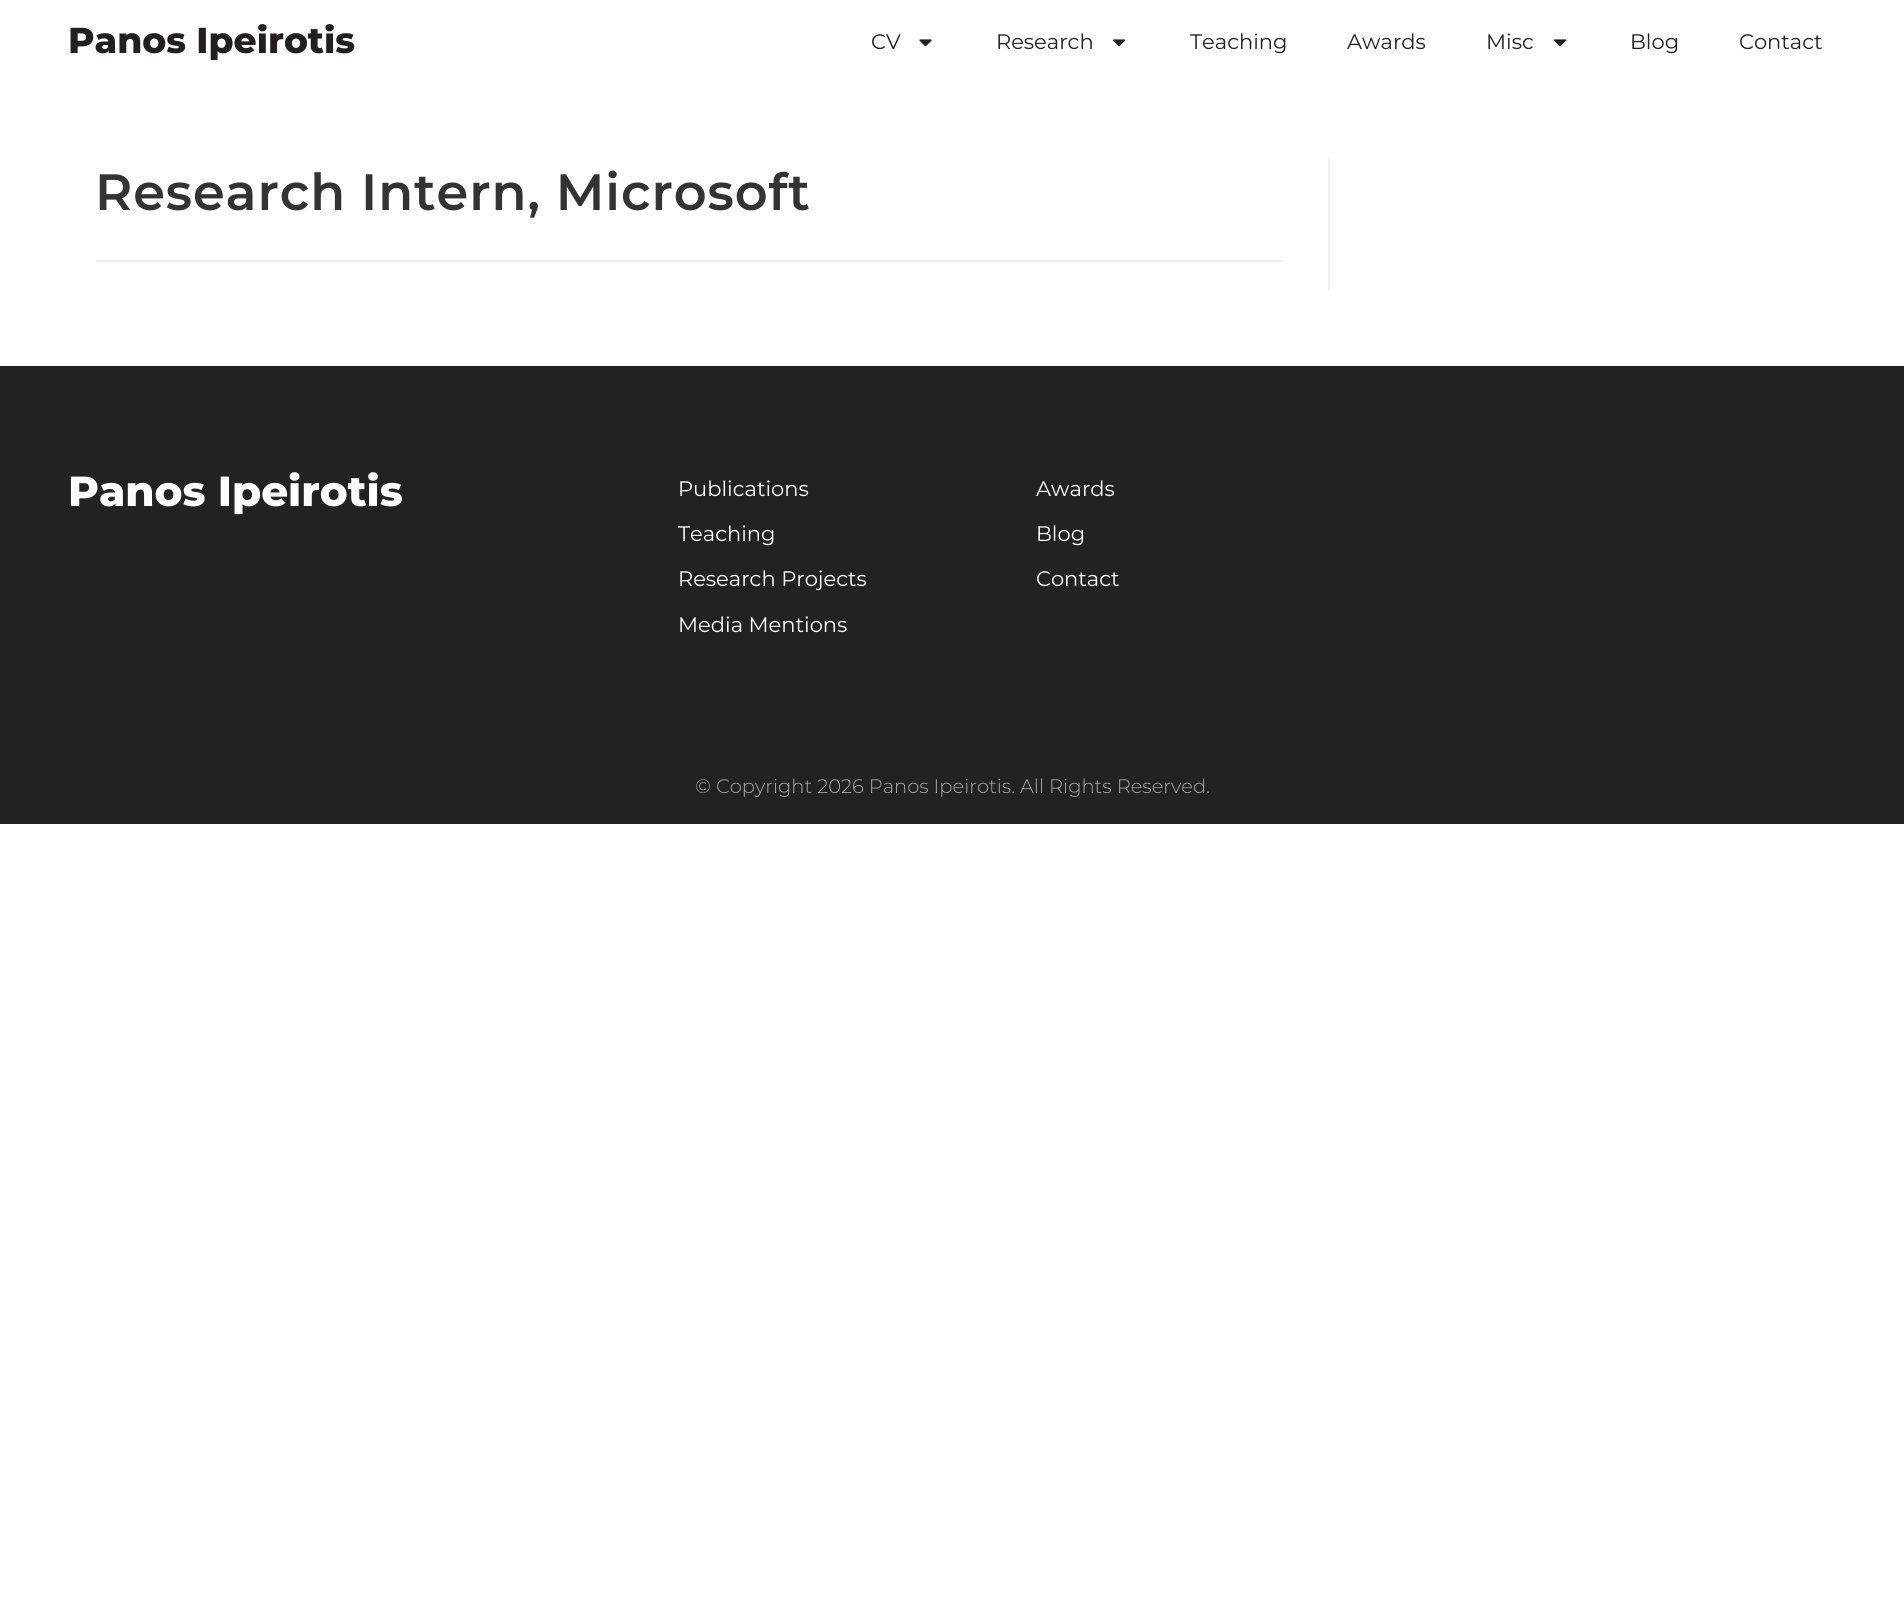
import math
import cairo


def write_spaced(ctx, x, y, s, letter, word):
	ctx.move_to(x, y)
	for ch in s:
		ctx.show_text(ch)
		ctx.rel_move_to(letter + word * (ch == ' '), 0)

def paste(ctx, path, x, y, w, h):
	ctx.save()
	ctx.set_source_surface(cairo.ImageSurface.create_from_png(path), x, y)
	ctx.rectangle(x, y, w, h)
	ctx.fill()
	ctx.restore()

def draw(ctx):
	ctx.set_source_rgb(1, 1, 1)
	ctx.paint()
	ctx.select_font_face('Montserrat ExtraBold')
	ctx.set_font_size(36)
	ctx.set_source_rgb(0.137, 0.122, 0.125)
	ctx.move_to(68, 53)
	ctx.show_text('Panos Ipeirotis')
	ctx.select_font_face('Montserrat')
	ctx.set_font_size(21)
	ctx.move_to(871, 49)
	ctx.show_text('CV')
	paste(ctx, 'media/1.png', 919, 39, 13, 8)
	ctx.move_to(996, 49)
	ctx.show_text('Research')
	paste(ctx, 'media/2.png', 1112, 39, 14, 8)
	for x, y, s in [
		(1190, 49, 'Teaching'),
		(1347, 49, 'Awards'),
		(1486, 49, 'Misc'),
	]:
		ctx.move_to(x, y)
		ctx.show_text(s)
	paste(ctx, 'media/2.png', 1553, 39, 14, 8)
	ctx.move_to(1630, 49)
	ctx.show_text('Blog')
	ctx.move_to(1739, 49)
	ctx.show_text('Contact')
	ctx.set_source_rgb(0.945, 0.945, 0.945)
	ctx.rectangle(1328, 158, 2, 133)
	ctx.fill()
	ctx.rectangle(96, 260, 1187, 2)
	ctx.fill()
	ctx.select_font_face('Montserrat SemiBold')
	ctx.set_font_size(51)
	ctx.set_source_rgb(0.2, 0.2, 0.2)
	write_spaced(ctx, 95, 210, 'Research Intern, Microsoft', 0.9, 0)
	ctx.set_source_rgb(0.133, 0.133, 0.133)
	ctx.rectangle(0, 366, 1904, 458)
	ctx.fill()
	ctx.select_font_face('Montserrat ExtraBold')
	ctx.set_font_size(42)
	ctx.set_source_rgb(1, 1, 1)
	ctx.move_to(68, 506)
	ctx.show_text('Panos Ipeirotis')
	ctx.select_font_face('Montserrat')
	ctx.set_font_size(21)
	for x, y, s in [
		(678, 496, 'Publications'),
		(678, 541, 'Teaching'),
		(678, 586, 'Research Projects'),
		(678, 632, 'Media Mentions'),
		(1036, 496, 'Awards'),
		(1036, 541, 'Blog'),
		(1036, 586, 'Contact'),
	]:
		ctx.move_to(x, y)
		ctx.show_text(s)
	ctx.select_font_face('Montserrat Light')
	ctx.set_font_size(19.5)
	ctx.set_source_rgb(0.655, 0.655, 0.655)
	ctx.move_to(695, 793)
	ctx.show_text('© Copyright 2026 Panos Ipeirotis. All Rights Reserved.')


surface = cairo.ImageSurface(cairo.FORMAT_RGB24, 1904, 1614)
ctx = cairo.Context(surface)
options = cairo.FontOptions()
options.set_hint_metrics(cairo.HINT_METRICS_OFF)
options.set_hint_style(cairo.HINT_STYLE_NONE)
ctx.set_font_options(options)
ctx.set_miter_limit(4)
draw(ctx)
surface.write_to_png('image.png')
